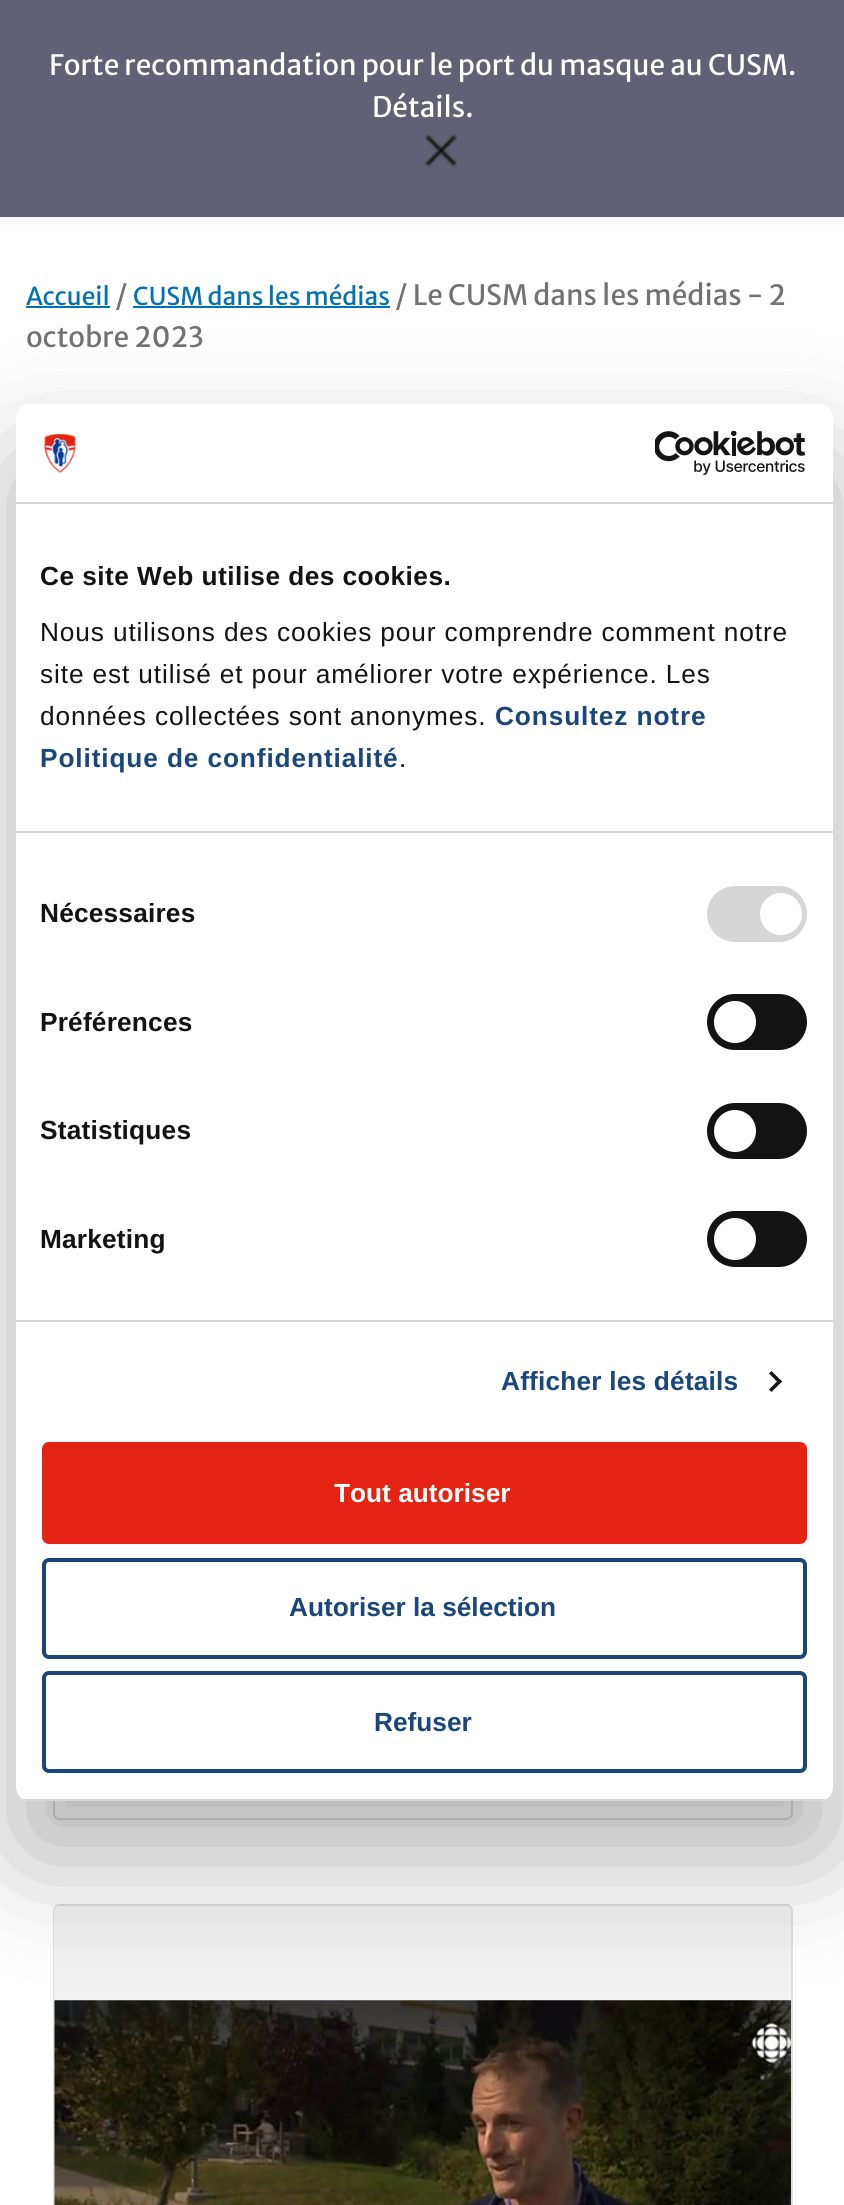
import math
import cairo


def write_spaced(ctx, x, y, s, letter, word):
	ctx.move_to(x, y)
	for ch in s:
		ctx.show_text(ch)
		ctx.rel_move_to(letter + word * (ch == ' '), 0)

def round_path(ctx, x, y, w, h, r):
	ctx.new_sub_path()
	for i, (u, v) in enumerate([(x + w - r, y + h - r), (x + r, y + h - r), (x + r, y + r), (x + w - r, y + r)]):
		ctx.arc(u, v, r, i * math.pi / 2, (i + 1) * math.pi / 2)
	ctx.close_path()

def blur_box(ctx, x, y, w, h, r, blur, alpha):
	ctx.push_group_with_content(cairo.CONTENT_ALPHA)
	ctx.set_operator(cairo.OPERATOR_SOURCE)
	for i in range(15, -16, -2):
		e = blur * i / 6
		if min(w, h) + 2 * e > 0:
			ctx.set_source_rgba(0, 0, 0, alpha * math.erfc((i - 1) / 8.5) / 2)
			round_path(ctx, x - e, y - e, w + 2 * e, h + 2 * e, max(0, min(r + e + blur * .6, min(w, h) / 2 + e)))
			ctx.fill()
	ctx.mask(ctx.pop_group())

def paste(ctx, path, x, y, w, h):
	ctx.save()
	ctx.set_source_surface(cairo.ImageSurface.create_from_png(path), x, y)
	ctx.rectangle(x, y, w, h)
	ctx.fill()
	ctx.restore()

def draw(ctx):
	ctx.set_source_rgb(1, 1, 1)
	ctx.paint()
	ctx.set_source_rgb(0, 0, 0)
	blur_box(ctx, 0, 67, 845, 148, 0, 6.5, 0.1)
	ctx.set_source_rgb(0.376, 0.376, 0.463)
	ctx.rectangle(0, 0, 844, 217)
	ctx.fill()
	ctx.select_font_face('Merriweather Sans')
	ctx.set_font_size(28)
	ctx.set_source_rgb(1, 1, 1)
	ctx.move_to(49, 75)
	ctx.show_text('Forte recommandation pour le port du masque au CUSM.')
	ctx.move_to(372, 117)
	ctx.show_text('Détails.')
	paste(ctx, 'media/1.png', 425, 134, 32, 33)
	ctx.set_source_rgb(0.447, 0.447, 0.447)
	ctx.move_to(395, 305)
	ctx.show_text('/ Le CUSM dans les médias - 2')
	ctx.move_to(26, 347)
	ctx.show_text('octobre 2023')
	ctx.set_font_size(24.5)
	ctx.set_source_rgb(0, 0.443, 0.702)
	ctx.move_to(26, 305)
	ctx.show_text('Accueil')
	ctx.rectangle(26, 306, 84, 2)
	ctx.fill()
	ctx.set_font_size(28)
	ctx.set_source_rgb(0.447, 0.447, 0.447)
	ctx.move_to(115, 305)
	ctx.show_text('/')
	ctx.set_font_size(24.5)
	ctx.set_source_rgb(0, 0.443, 0.702)
	ctx.move_to(133, 305)
	ctx.show_text('CUSM dans les médias')
	ctx.rectangle(133, 306, 257, 2)
	ctx.fill()
	round_path(ctx, 54, 626, 738, 1193, 6)
	ctx.set_source_rgb(0.875, 0.875, 0.875)
	ctx.stroke()
	round_path(ctx, 54, 1905, 738, 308, 6)
	ctx.stroke()
	ctx.set_source_rgb(0.945, 0.945, 0.945)
	ctx.new_path()
	ctx.move_to(59, 1906)
	ctx.line_to(786, 1906)
	ctx.curve_to(789, 1906, 791, 1908, 791, 1911)
	ctx.line_to(791, 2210)
	ctx.line_to(54, 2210)
	ctx.line_to(54, 1911)
	ctx.curve_to(54, 1908, 56, 1906, 59, 1906)
	ctx.close_path()
	ctx.fill()
	paste(ctx, 'media/2.png', 54, 2000, 737, 205)
	ctx.set_source_rgb(0, 0, 0)
	blur_box(ctx, 16, 460, 817, 1397, 14, 59.5, 0.3)
	ctx.set_source_rgb(1, 1, 1)
	round_path(ctx, 16, 404, 817, 1397, 14)
	ctx.fill()
	ctx.set_source_rgb(0.839, 0.839, 0.839)
	ctx.rectangle(16, 502, 817, 2)
	ctx.fill()
	paste(ctx, 'media/3.png', 44, 434, 32, 39)
	paste(ctx, 'media/4.png', 655, 431, 151, 44)
	ctx.rectangle(16, 831, 817, 2)
	ctx.fill()
	ctx.select_font_face('Liberation Sans', cairo.FONT_SLANT_NORMAL, cairo.FONT_WEIGHT_BOLD)
	ctx.set_font_size(26.25)
	ctx.set_source_rgb(0.078, 0.078, 0.078)
	write_spaced(ctx, 40, 585, 'Ce site Web utilise des cookies.', 0.45, 0)
	ctx.select_font_face('Liberation Sans')
	for x, y, s in [
		(40, 641, 'Nous utilisons des cookies pour comprendre comment notre'),
		(40, 683, 'site est utilisé et pour améliorer votre expérience. Les'),
		(40, 725, 'données collectées sont anonymes.'),
	]:
		write_spaced(ctx, x, y, s, 0.88, 0)
	ctx.select_font_face('Liberation Sans', cairo.FONT_SLANT_NORMAL, cairo.FONT_WEIGHT_BOLD)
	ctx.set_source_rgb(0.102, 0.275, 0.475)
	write_spaced(ctx, 495, 725, 'Consultez notre', 0.88, 0)
	write_spaced(ctx, 40, 767, 'Politique de confidentialité', 0.88, 0)
	ctx.select_font_face('Liberation Sans')
	ctx.set_source_rgb(0.078, 0.078, 0.078)
	write_spaced(ctx, 399, 767, '.', 0.88, 0)
	ctx.set_source_rgb(0.839, 0.839, 0.839)
	ctx.rectangle(16, 1320, 817, 2)
	ctx.fill()
	ctx.select_font_face('Liberation Sans', cairo.FONT_SLANT_NORMAL, cairo.FONT_WEIGHT_BOLD)
	ctx.set_source_rgb(0.078, 0.078, 0.078)
	write_spaced(ctx, 40, 922, 'Nécessaires', 0.2, 0)
	ctx.set_source_rgb(0.839, 0.839, 0.839)
	round_path(ctx, 707, 886, 100, 56, 28)
	ctx.fill()
	ctx.set_source_rgb(1, 1, 1)
	ctx.arc(781, 914, 21, 0, 2 * math.pi)
	ctx.fill()
	ctx.set_source_rgb(0.078, 0.078, 0.078)
	write_spaced(ctx, 40, 1031, 'Préférences', 0.2, 0)
	round_path(ctx, 707, 994, 100, 56, 28)
	ctx.fill()
	ctx.set_source_rgb(1, 1, 1)
	ctx.arc(735, 1022, 21, 0, 2 * math.pi)
	ctx.fill()
	ctx.set_source_rgb(0.078, 0.078, 0.078)
	write_spaced(ctx, 40, 1139, 'Statistiques', 0.2, 0)
	round_path(ctx, 707, 1103, 100, 56, 28)
	ctx.fill()
	ctx.set_source_rgb(1, 1, 1)
	ctx.arc(735, 1131, 21, 0, 2 * math.pi)
	ctx.fill()
	ctx.set_source_rgb(0.078, 0.078, 0.078)
	write_spaced(ctx, 40, 1248, 'Marketing', 0.2, 0)
	round_path(ctx, 707, 1211, 100, 56, 28)
	ctx.fill()
	ctx.set_source_rgb(1, 1, 1)
	ctx.arc(735, 1239, 21, 0, 2 * math.pi)
	ctx.fill()
	ctx.set_source_rgb(0.102, 0.275, 0.475)
	write_spaced(ctx, 501, 1390, 'Afficher les détails', 0.2, 0)
	ctx.set_source_rgb(0.078, 0.078, 0.078)
	ctx.new_path()
	ctx.move_to(771.5, 1371)
	ctx.line_to(782, 1381.5)
	ctx.line_to(779.5, 1384)
	ctx.line_to(769, 1373.5)
	ctx.close_path()
	ctx.fill()
	ctx.new_path()
	ctx.move_to(779.5, 1379)
	ctx.line_to(782, 1381.5)
	ctx.line_to(771.5, 1392)
	ctx.line_to(769, 1389.5)
	ctx.close_path()
	ctx.fill()
	ctx.save()
	round_path(ctx, 16, 404, 817, 1397, 14)
	ctx.clip()
	ctx.set_source_rgb(0.839, 0.839, 0.839)
	ctx.rectangle(16, 1799, 817, 2)
	ctx.fill()
	ctx.restore()
	ctx.set_source_rgb(0.894, 0.137, 0.075)
	round_path(ctx, 44, 1444, 761, 98, 5)
	ctx.fill_preserve()
	ctx.set_line_width(4)
	ctx.stroke()
	ctx.set_source_rgb(1, 1, 1)
	ctx.move_to(334, 1502)
	ctx.show_text('Tout autoriser')
	round_path(ctx, 44, 1560, 761, 97, 5)
	ctx.set_source_rgb(0.102, 0.275, 0.475)
	ctx.stroke()
	ctx.move_to(289, 1616)
	ctx.show_text('Autoriser la sélection')
	round_path(ctx, 44, 1673, 761, 98, 5)
	ctx.stroke()
	ctx.move_to(374, 1731)
	ctx.show_text('Refuser')


surface = cairo.ImageSurface(cairo.FORMAT_RGB24, 844, 2205)
ctx = cairo.Context(surface)
options = cairo.FontOptions()
options.set_hint_metrics(cairo.HINT_METRICS_OFF)
options.set_hint_style(cairo.HINT_STYLE_NONE)
ctx.set_font_options(options)
ctx.set_miter_limit(4)
draw(ctx)
surface.write_to_png('image.png')
